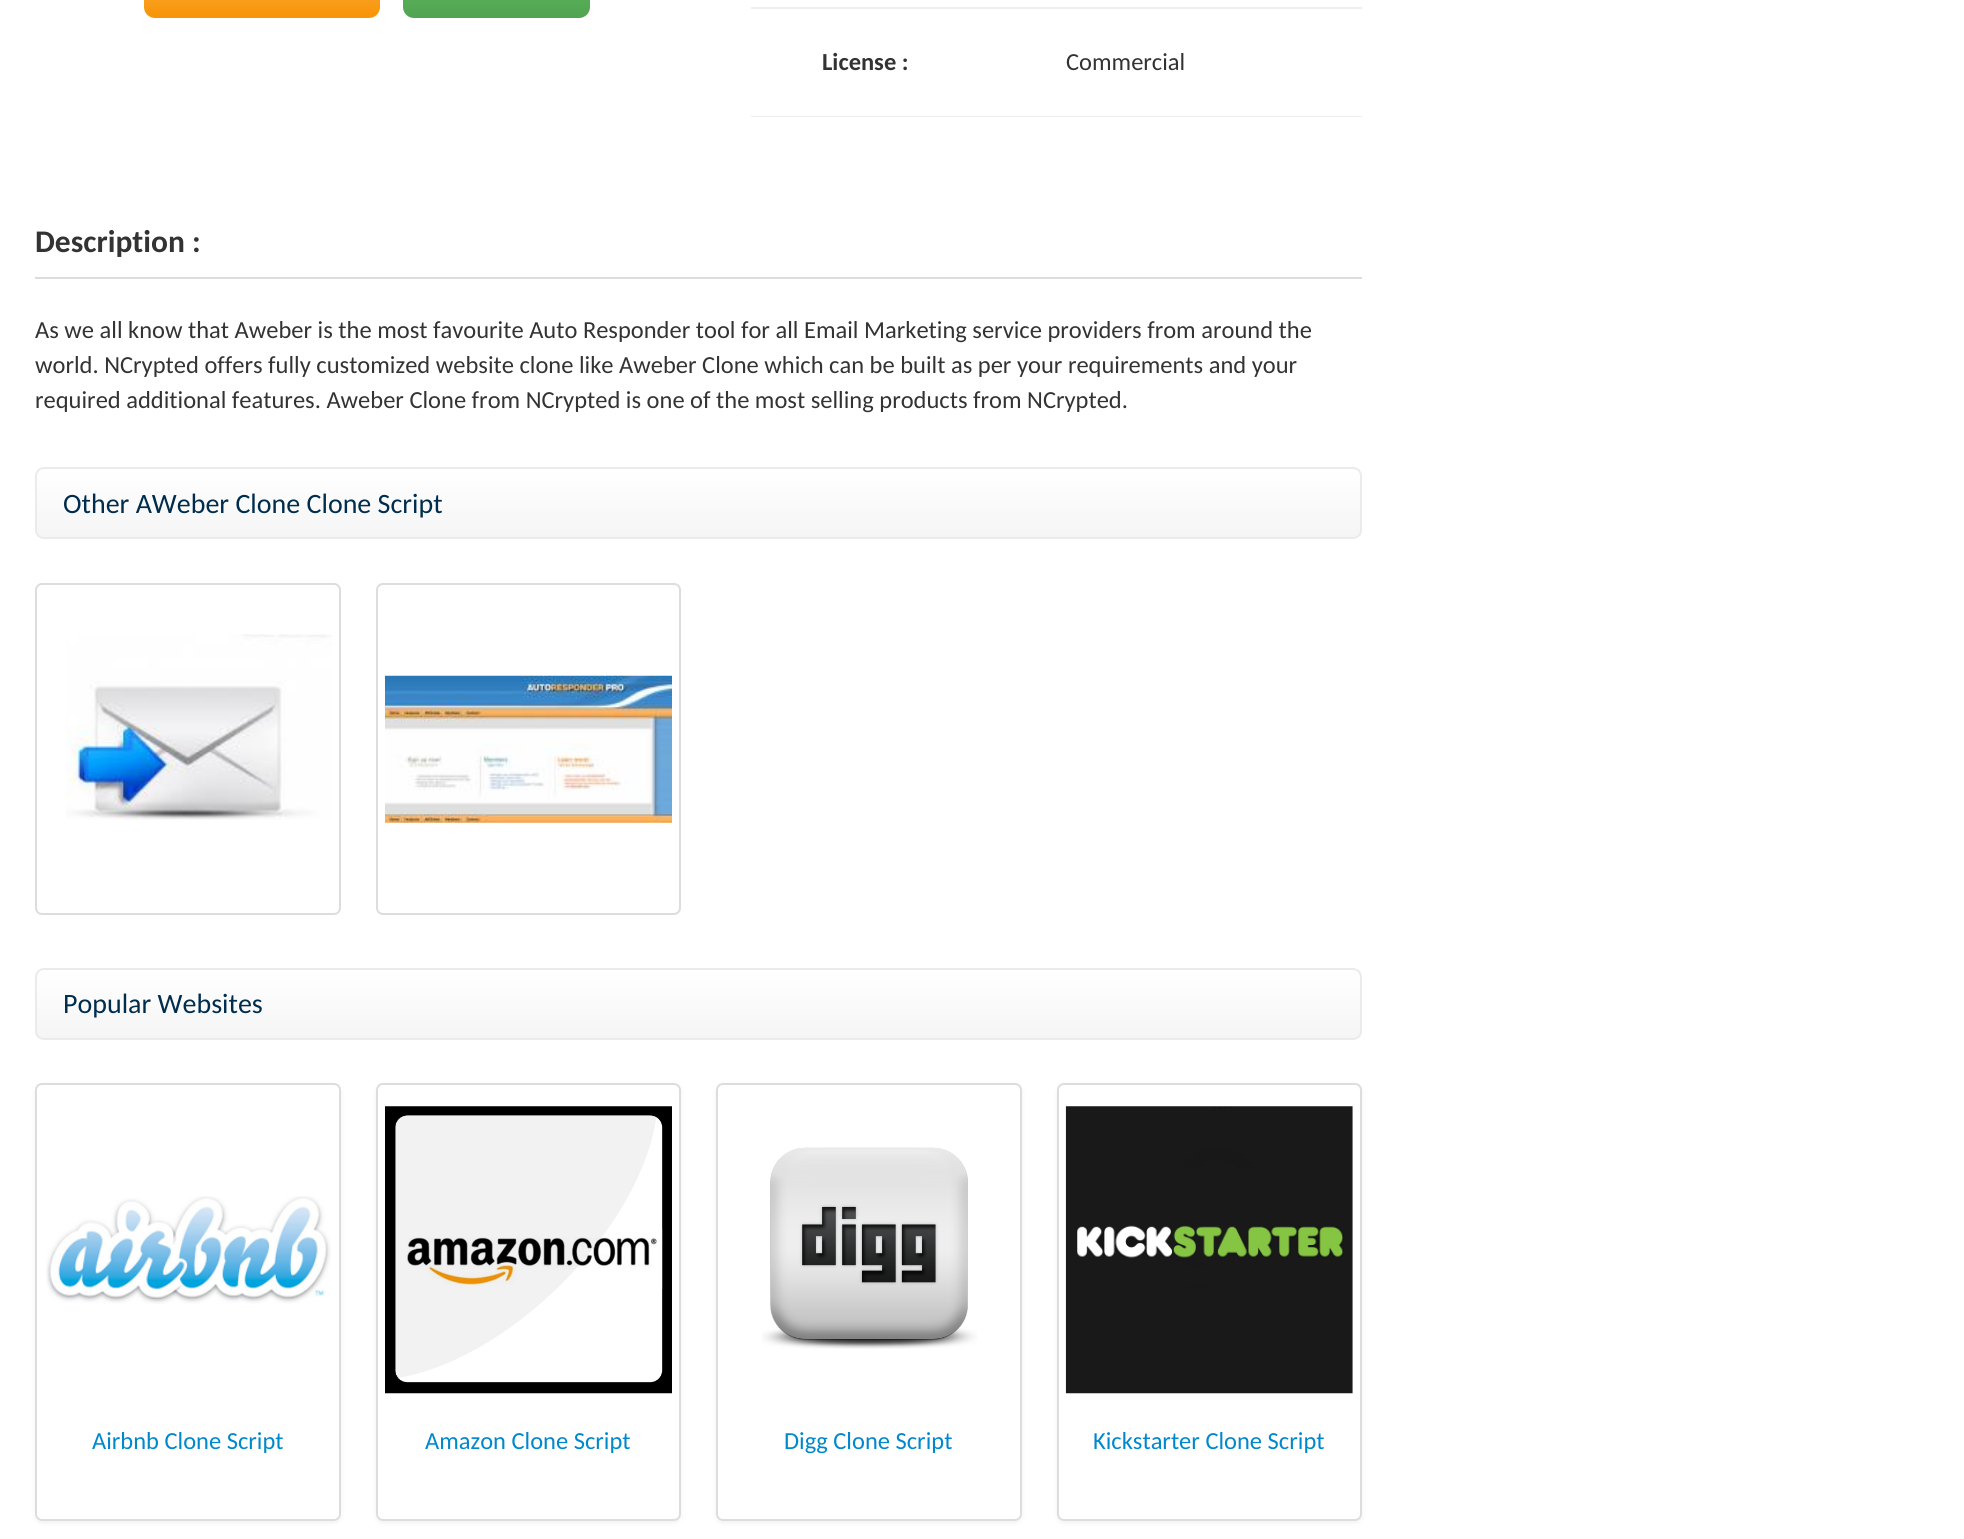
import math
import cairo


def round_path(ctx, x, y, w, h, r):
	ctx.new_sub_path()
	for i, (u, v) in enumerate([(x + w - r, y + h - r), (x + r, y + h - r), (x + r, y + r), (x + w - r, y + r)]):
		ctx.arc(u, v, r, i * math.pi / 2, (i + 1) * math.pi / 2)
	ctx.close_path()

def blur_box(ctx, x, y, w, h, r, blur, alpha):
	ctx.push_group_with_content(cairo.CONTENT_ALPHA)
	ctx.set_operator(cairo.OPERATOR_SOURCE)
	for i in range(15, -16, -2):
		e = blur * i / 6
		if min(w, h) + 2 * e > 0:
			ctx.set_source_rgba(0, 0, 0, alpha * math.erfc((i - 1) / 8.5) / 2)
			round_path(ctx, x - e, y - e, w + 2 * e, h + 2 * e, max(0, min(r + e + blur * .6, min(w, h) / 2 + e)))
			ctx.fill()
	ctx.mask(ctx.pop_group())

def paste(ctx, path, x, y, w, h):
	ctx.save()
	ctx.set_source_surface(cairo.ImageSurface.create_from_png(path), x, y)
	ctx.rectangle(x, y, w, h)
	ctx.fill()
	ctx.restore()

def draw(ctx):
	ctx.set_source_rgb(1, 1, 1)
	ctx.paint()
	gradient = cairo.LinearGradient(262, -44, 262, 18)
	gradient.add_color_stop_rgba(0, 0.984, 0.706, 0.314, 1)
	gradient.add_color_stop_rgba(1, 0.973, 0.58, 0.024, 1)
	ctx.set_source(gradient)
	round_path(ctx, 144, -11, 236, 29, 11)
	ctx.fill()
	gradient = cairo.LinearGradient(496, -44, 496, 18)
	gradient.add_color_stop_rgba(0, 0.384, 0.769, 0.384, 1)
	gradient.add_color_stop_rgba(1, 0.318, 0.639, 0.318, 1)
	ctx.set_source(gradient)
	round_path(ctx, 403, -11, 187, 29, 11)
	ctx.fill()
	ctx.set_source_rgb(0.933, 0.933, 0.933)
	ctx.rectangle(751, 7, 611, 2)
	ctx.fill()
	ctx.select_font_face('Carlito', cairo.FONT_SLANT_NORMAL, cairo.FONT_WEIGHT_BOLD)
	ctx.set_font_size(24.5)
	ctx.set_source_rgb(0.2, 0.2, 0.2)
	ctx.move_to(822, 70)
	ctx.show_text('License :')
	ctx.select_font_face('Carlito')
	ctx.move_to(1066, 70)
	ctx.show_text('Commercial')
	ctx.set_source_rgb(0.933, 0.933, 0.933)
	ctx.rectangle(751, 116, 611, 1)
	ctx.fill()
	ctx.set_source_rgb(0.867, 0.867, 0.867)
	ctx.rectangle(35, 277, 1327, 2)
	ctx.fill()
	ctx.select_font_face('Carlito', cairo.FONT_SLANT_NORMAL, cairo.FONT_WEIGHT_BOLD)
	ctx.set_font_size(31.5)
	ctx.set_source_rgb(0.2, 0.2, 0.2)
	ctx.move_to(35, 252)
	ctx.show_text('Description :')
	ctx.select_font_face('Carlito')
	ctx.set_font_size(24.5)
	for x, y, s in [
		(35, 338, 'As we all know that Aweber is the most favourite Auto Responder tool for all Email Marketing service providers from around the'),
		(35, 373, 'world. NCrypted offers fully customized website clone like Aweber Clone which can be built as per your requirements and your'),
		(35, 408, 'required additional features. Aweber Clone from NCrypted is one of the most selling products from NCrypted.'),
	]:
		ctx.move_to(x, y)
		ctx.show_text(s)
	ctx.save()
	round_path(ctx, 35, 467, 1327, 72, 9)
	ctx.clip()
	gradient = cairo.LinearGradient(698, 469, 698, 537)
	gradient.add_color_stop_rgba(0, 1, 1, 1, 1)
	gradient.add_color_stop_rgba(1, 0.961, 0.961, 0.961, 1)
	ctx.set_source(gradient)
	ctx.rectangle(35, 469, 1327, 68)
	ctx.fill()
	ctx.restore()
	round_path(ctx, 36, 468, 1325, 70, 8)
	ctx.set_source_rgb(0.918, 0.918, 0.918)
	ctx.stroke()
	ctx.set_font_size(28)
	ctx.set_source_rgb(0, 0.176, 0.306)
	ctx.move_to(63, 513)
	ctx.show_text('Other AWeber Clone Clone Script')
	round_path(ctx, 36, 584, 304, 330, 6)
	ctx.set_source_rgb(0.867, 0.867, 0.867)
	ctx.stroke()
	paste(ctx, 'media/1.png', 66, 634, 266, 186)
	round_path(ctx, 377, 584, 303, 330, 6)
	ctx.stroke()
	paste(ctx, 'media/2.png', 385, 675, 287, 148)
	ctx.save()
	round_path(ctx, 35, 968, 1327, 72, 9)
	ctx.clip()
	gradient = cairo.LinearGradient(698, 970, 698, 1038)
	gradient.add_color_stop_rgba(0, 1, 1, 1, 1)
	gradient.add_color_stop_rgba(1, 0.961, 0.961, 0.961, 1)
	ctx.set_source(gradient)
	ctx.rectangle(35, 970, 1327, 68)
	ctx.fill()
	ctx.restore()
	round_path(ctx, 36, 969, 1325, 70, 8)
	ctx.set_source_rgb(0.918, 0.918, 0.918)
	ctx.stroke()
	ctx.set_source_rgb(0, 0.176, 0.306)
	ctx.move_to(63, 1013)
	ctx.show_text('Popular Websites')
	ctx.save()
	ctx.set_fill_rule(cairo.FILL_RULE_EVEN_ODD)
	ctx.new_path()
	ctx.move_to(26, 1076)
	ctx.line_to(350, 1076)
	ctx.line_to(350, 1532)
	ctx.line_to(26, 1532)
	ctx.close_path()
	ctx.move_to(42, 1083)
	ctx.line_to(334, 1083)
	ctx.curve_to(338, 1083, 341, 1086, 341, 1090)
	ctx.line_to(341, 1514)
	ctx.curve_to(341, 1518, 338, 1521, 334, 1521)
	ctx.line_to(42, 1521)
	ctx.curve_to(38, 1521, 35, 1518, 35, 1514)
	ctx.line_to(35, 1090)
	ctx.curve_to(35, 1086, 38, 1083, 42, 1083)
	ctx.close_path()
	ctx.clip()
	ctx.set_source_rgb(0, 0, 0)
	blur_box(ctx, 35, 1085, 306, 438, 7, 2.5, 0.06)
	ctx.restore()
	round_path(ctx, 36, 1084, 304, 436, 6)
	ctx.set_source_rgb(0.867, 0.867, 0.867)
	ctx.stroke()
	paste(ctx, 'media/3.png', 46, 1196, 285, 108)
	ctx.set_font_size(24.5)
	ctx.set_source_rgb(0, 0.533, 0.8)
	ctx.move_to(92, 1449)
	ctx.show_text('Airbnb Clone Script')
	ctx.save()
	ctx.set_fill_rule(cairo.FILL_RULE_EVEN_ODD)
	ctx.new_path()
	ctx.move_to(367, 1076)
	ctx.line_to(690, 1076)
	ctx.line_to(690, 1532)
	ctx.line_to(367, 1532)
	ctx.close_path()
	ctx.move_to(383, 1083)
	ctx.line_to(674, 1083)
	ctx.curve_to(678, 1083, 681, 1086, 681, 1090)
	ctx.line_to(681, 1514)
	ctx.curve_to(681, 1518, 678, 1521, 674, 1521)
	ctx.line_to(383, 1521)
	ctx.curve_to(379, 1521, 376, 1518, 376, 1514)
	ctx.line_to(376, 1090)
	ctx.curve_to(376, 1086, 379, 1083, 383, 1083)
	ctx.close_path()
	ctx.clip()
	ctx.set_source_rgb(0, 0, 0)
	blur_box(ctx, 376, 1085, 305, 438, 7, 2.5, 0.06)
	ctx.restore()
	round_path(ctx, 377, 1084, 303, 436, 6)
	ctx.set_source_rgb(0.867, 0.867, 0.867)
	ctx.stroke()
	paste(ctx, 'media/4.png', 385, 1106, 287, 288)
	ctx.set_source_rgb(0, 0.533, 0.8)
	ctx.move_to(425, 1449)
	ctx.show_text('Amazon Clone Script')
	ctx.save()
	ctx.set_fill_rule(cairo.FILL_RULE_EVEN_ODD)
	ctx.new_path()
	ctx.move_to(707, 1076)
	ctx.line_to(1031, 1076)
	ctx.line_to(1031, 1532)
	ctx.line_to(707, 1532)
	ctx.close_path()
	ctx.move_to(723, 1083)
	ctx.line_to(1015, 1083)
	ctx.curve_to(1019, 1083, 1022, 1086, 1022, 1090)
	ctx.line_to(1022, 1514)
	ctx.curve_to(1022, 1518, 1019, 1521, 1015, 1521)
	ctx.line_to(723, 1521)
	ctx.curve_to(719, 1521, 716, 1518, 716, 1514)
	ctx.line_to(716, 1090)
	ctx.curve_to(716, 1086, 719, 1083, 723, 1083)
	ctx.close_path()
	ctx.clip()
	ctx.set_source_rgb(0, 0, 0)
	blur_box(ctx, 716, 1085, 306, 438, 7, 2.5, 0.06)
	ctx.restore()
	round_path(ctx, 717, 1084, 304, 436, 6)
	ctx.set_source_rgb(0.867, 0.867, 0.867)
	ctx.stroke()
	paste(ctx, 'media/5.png', 762, 1147, 215, 202)
	ctx.set_source_rgb(0, 0.533, 0.8)
	ctx.move_to(784, 1449)
	ctx.show_text('Digg Clone Script')
	ctx.save()
	ctx.set_fill_rule(cairo.FILL_RULE_EVEN_ODD)
	ctx.new_path()
	ctx.move_to(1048, 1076)
	ctx.line_to(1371, 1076)
	ctx.line_to(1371, 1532)
	ctx.line_to(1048, 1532)
	ctx.close_path()
	ctx.move_to(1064, 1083)
	ctx.line_to(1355, 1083)
	ctx.curve_to(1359, 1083, 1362, 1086, 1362, 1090)
	ctx.line_to(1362, 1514)
	ctx.curve_to(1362, 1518, 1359, 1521, 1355, 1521)
	ctx.line_to(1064, 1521)
	ctx.curve_to(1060, 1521, 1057, 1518, 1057, 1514)
	ctx.line_to(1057, 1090)
	ctx.curve_to(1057, 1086, 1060, 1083, 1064, 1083)
	ctx.close_path()
	ctx.clip()
	ctx.set_source_rgb(0, 0, 0)
	blur_box(ctx, 1057, 1085, 305, 438, 7, 2.5, 0.06)
	ctx.restore()
	round_path(ctx, 1058, 1084, 303, 436, 6)
	ctx.set_source_rgb(0.867, 0.867, 0.867)
	ctx.stroke()
	paste(ctx, 'media/6.png', 1065, 1106, 288, 288)
	ctx.set_source_rgb(0, 0.533, 0.8)
	ctx.move_to(1093, 1449)
	ctx.show_text('Kickstarter Clone Script')


surface = cairo.ImageSurface(cairo.FORMAT_RGB24, 1964, 1539)
ctx = cairo.Context(surface)
options = cairo.FontOptions()
options.set_hint_metrics(cairo.HINT_METRICS_OFF)
options.set_hint_style(cairo.HINT_STYLE_NONE)
ctx.set_font_options(options)
ctx.set_miter_limit(4)
draw(ctx)
surface.write_to_png('image.png')
